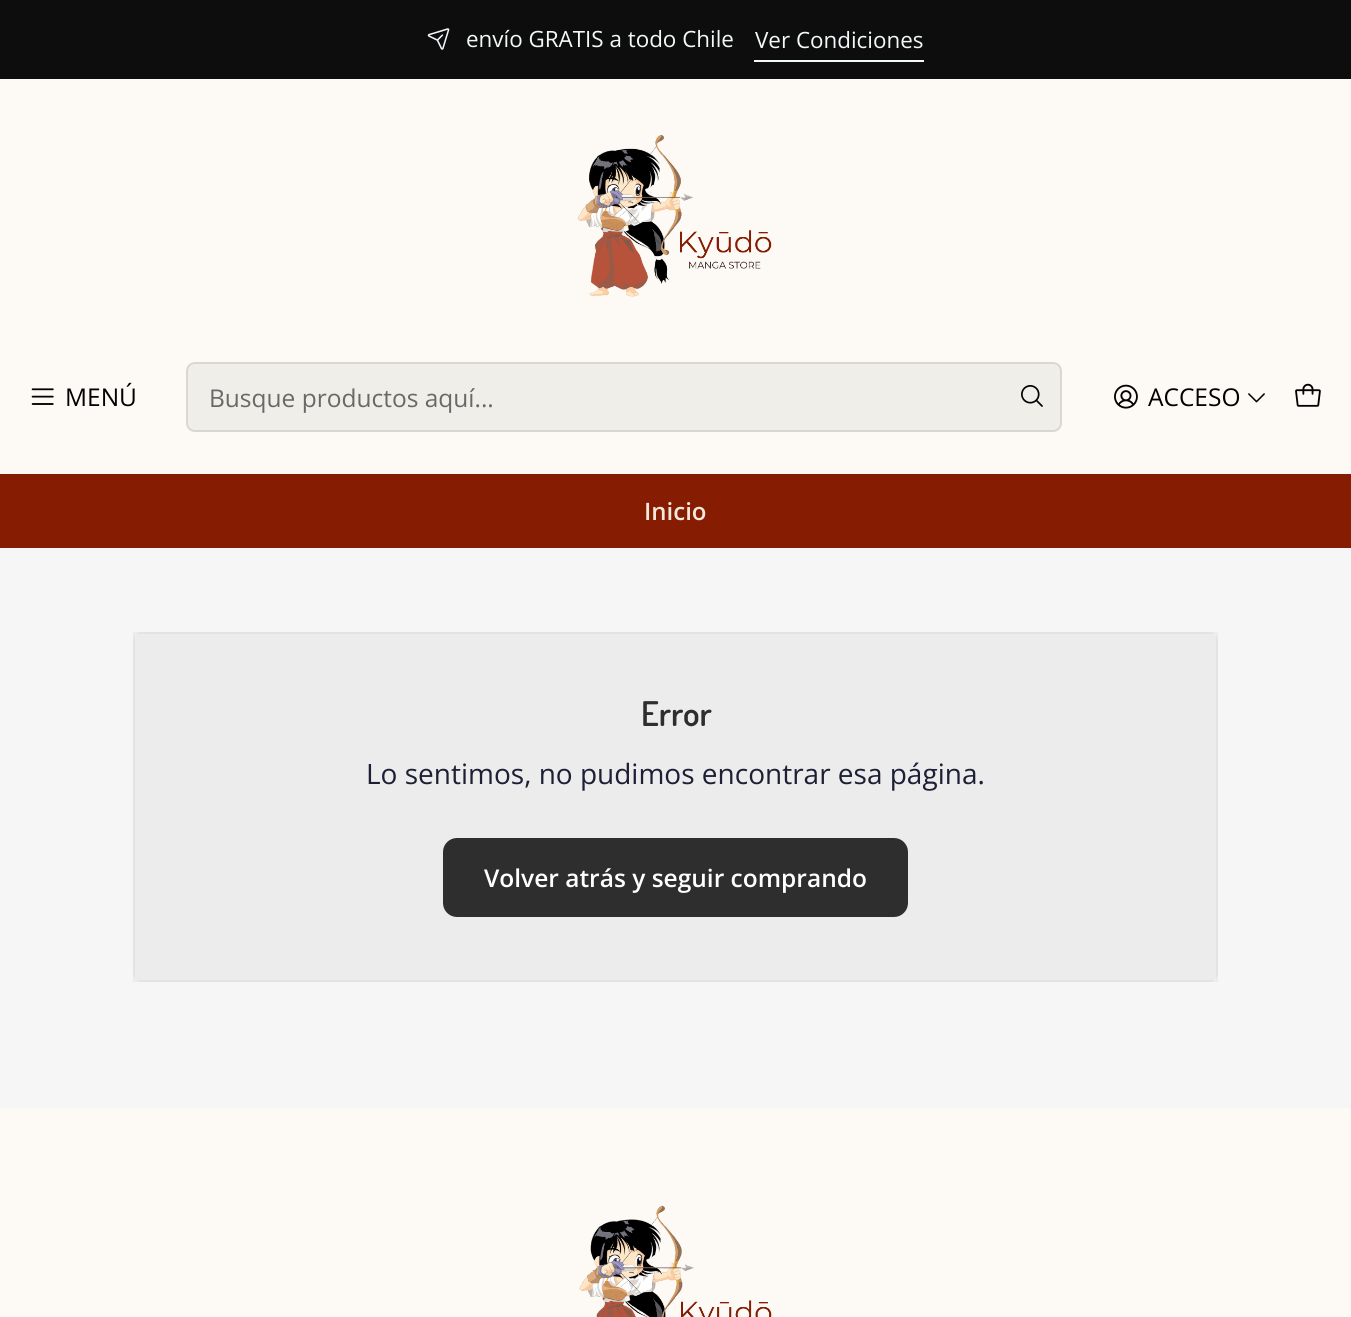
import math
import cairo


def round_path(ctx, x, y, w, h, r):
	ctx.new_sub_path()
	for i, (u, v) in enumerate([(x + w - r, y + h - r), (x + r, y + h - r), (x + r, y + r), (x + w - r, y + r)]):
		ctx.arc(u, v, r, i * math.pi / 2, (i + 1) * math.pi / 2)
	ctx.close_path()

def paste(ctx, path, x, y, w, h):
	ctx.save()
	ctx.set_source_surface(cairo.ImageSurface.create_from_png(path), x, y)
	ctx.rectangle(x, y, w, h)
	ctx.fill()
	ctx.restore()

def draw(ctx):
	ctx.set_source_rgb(0.961, 0.961, 0.961)
	ctx.paint()
	ctx.set_source_rgb(0.051, 0.051, 0.051)
	ctx.rectangle(0, 0, 1351, 79)
	ctx.fill()
	paste(ctx, 'media/1.png', 427, 28, 23, 22)
	ctx.select_font_face('Open Sans')
	ctx.set_font_size(22.4)
	ctx.set_source_rgb(0.953, 0.969, 0.976)
	ctx.move_to(466, 47)
	ctx.show_text('envío GRATIS a todo Chile')
	ctx.rectangle(754, 60, 170, 2)
	ctx.fill()
	ctx.move_to(755, 48)
	ctx.show_text('Ver Condiciones')
	ctx.set_source_rgb(0.992, 0.98, 0.961)
	ctx.rectangle(0, 79, 1351, 395)
	ctx.fill()
	paste(ctx, 'media/2.png', 577, 135, 195, 162)
	paste(ctx, 'media/3.png', 31, 388, 23, 17)
	ctx.set_font_size(24.5)
	ctx.set_source_rgb(0, 0, 0)
	ctx.move_to(65, 406)
	ctx.show_text('MENÚ')
	ctx.set_source_rgb(0.941, 0.933, 0.914)
	round_path(ctx, 186, 362, 876, 70, 9)
	ctx.fill()
	round_path(ctx, 187, 363, 874, 68, 8)
	ctx.set_source_rgba(0, 0, 0, 0.1)
	ctx.stroke()
	ctx.set_source_rgb(0.416, 0.412, 0.404)
	ctx.move_to(209, 407)
	ctx.show_text('Busque productos aquí...')
	paste(ctx, 'media/4.png', 1021, 385, 22, 22)
	paste(ctx, 'media/5.png', 1114, 384, 24, 25)
	ctx.set_source_rgb(0, 0, 0)
	ctx.move_to(1148, 406)
	ctx.show_text('ACCESO')
	paste(ctx, 'media/6.png', 1248, 393, 17, 10)
	paste(ctx, 'media/7.png', 1295, 383, 26, 24)
	ctx.set_source_rgb(0.525, 0.11, 0.008)
	ctx.rectangle(0, 474, 1351, 74)
	ctx.fill()
	ctx.select_font_face('Open Sans SemiBold')
	ctx.set_font_size(24)
	ctx.set_source_rgb(0.957, 0.914, 0.855)
	ctx.move_to(644, 520)
	ctx.show_text('Inicio')
	ctx.set_source_rgb(0.922, 0.922, 0.922)
	round_path(ctx, 133, 632, 1085, 350, 9)
	ctx.fill()
	ctx.rectangle(134, 633, 1083, 348)
	ctx.set_source_rgba(0.18, 0.18, 0.18, 0.05)
	ctx.stroke()
	ctx.select_font_face('Dosis SemiBold')
	ctx.set_font_size(34)
	ctx.set_source_rgb(0.18, 0.18, 0.18)
	ctx.move_to(641, 726)
	ctx.show_text('Error')
	ctx.select_font_face('Open Sans')
	ctx.set_font_size(28)
	ctx.set_source_rgb(0.114, 0.125, 0.208)
	ctx.move_to(366, 784)
	ctx.show_text('Lo sentimos, no pudimos encontrar esa página.')
	ctx.set_source_rgb(0.18, 0.18, 0.18)
	round_path(ctx, 443, 838, 465, 79, 14)
	ctx.fill()
	ctx.select_font_face('Open Sans SemiBold')
	ctx.set_font_size(24.5)
	ctx.set_source_rgb(1, 1, 1)
	ctx.move_to(484, 887)
	ctx.show_text('Volver atrás y seguir comprando')
	ctx.set_source_rgb(0.992, 0.98, 0.961)
	ctx.rectangle(0, 1108, 1351, 209)
	ctx.fill()
	paste(ctx, 'media/8.png', 579, 1205, 193, 112)


surface = cairo.ImageSurface(cairo.FORMAT_RGB24, 1351, 1317)
ctx = cairo.Context(surface)
options = cairo.FontOptions()
options.set_hint_metrics(cairo.HINT_METRICS_OFF)
options.set_hint_style(cairo.HINT_STYLE_NONE)
ctx.set_font_options(options)
ctx.set_miter_limit(4)
draw(ctx)
surface.write_to_png('image.png')
